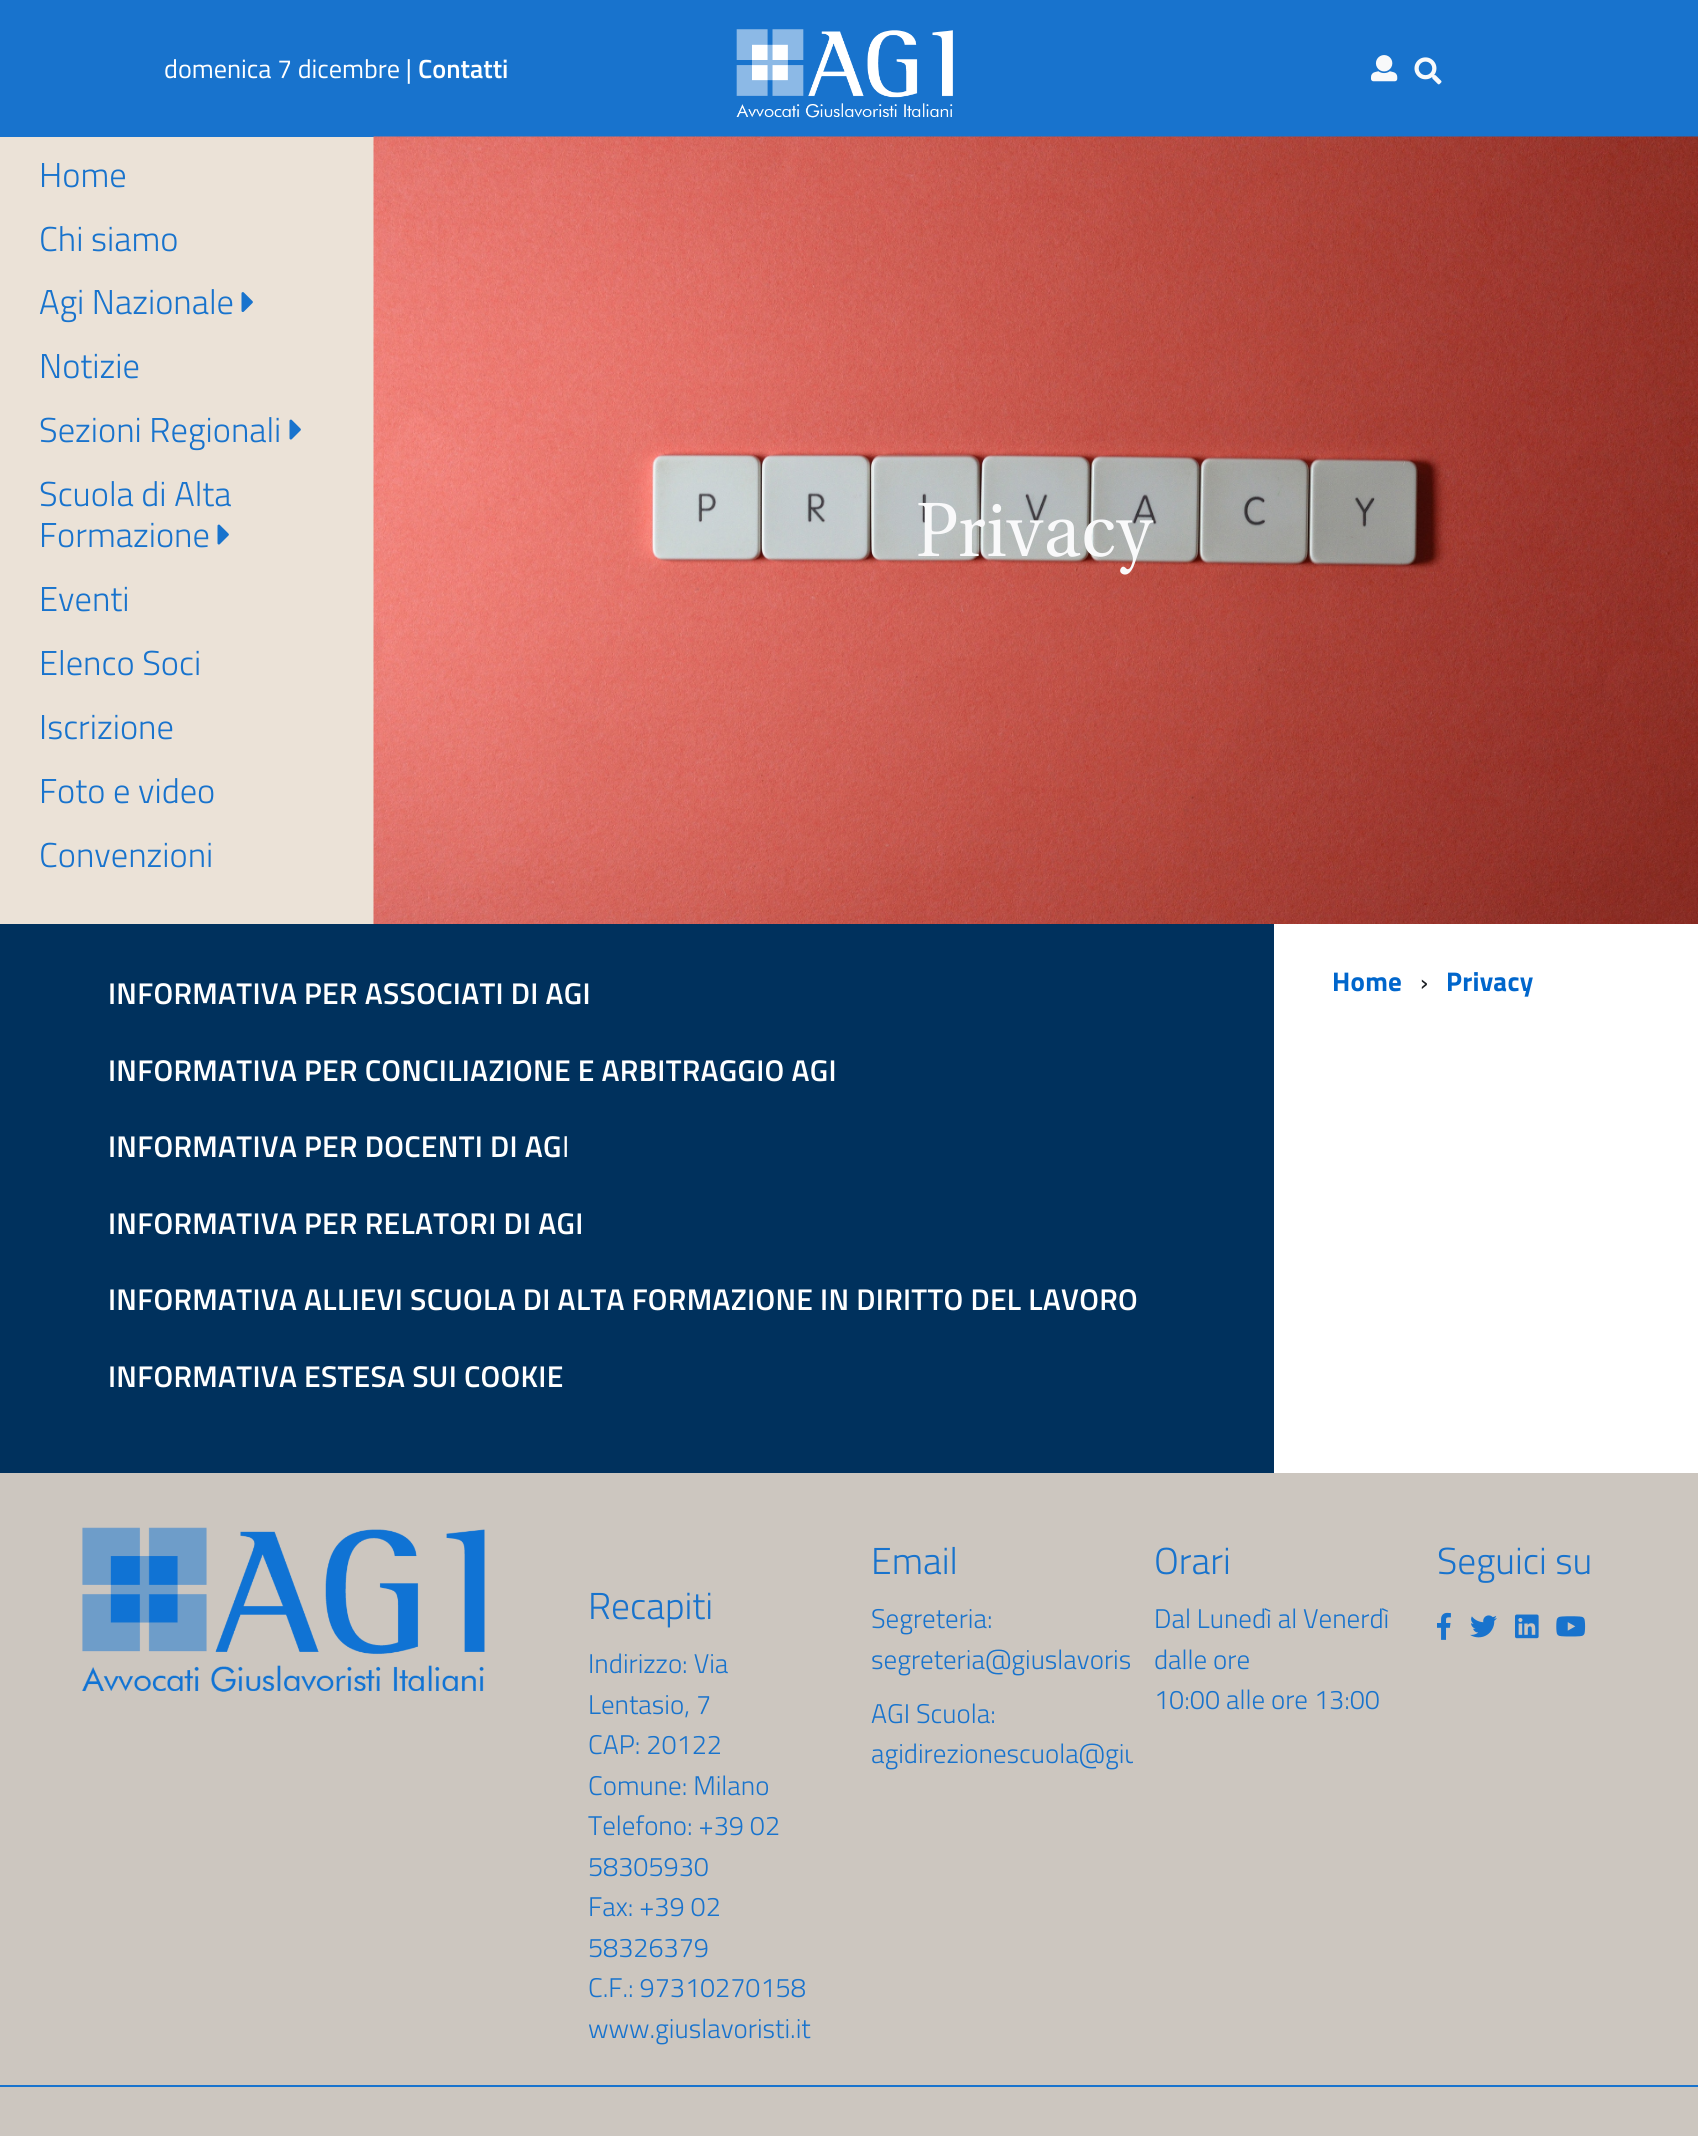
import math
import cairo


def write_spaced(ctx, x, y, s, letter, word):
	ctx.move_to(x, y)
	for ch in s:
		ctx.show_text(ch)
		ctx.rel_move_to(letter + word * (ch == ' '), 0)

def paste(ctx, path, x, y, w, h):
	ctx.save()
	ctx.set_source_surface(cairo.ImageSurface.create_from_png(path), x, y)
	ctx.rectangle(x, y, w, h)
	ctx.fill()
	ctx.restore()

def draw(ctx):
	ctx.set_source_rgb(1, 1, 1)
	ctx.paint()
	ctx.set_source_rgb(0.094, 0.451, 0.804)
	ctx.rectangle(0, 0, 1698, 137)
	ctx.fill()
	ctx.select_font_face('Titillium Web')
	ctx.set_font_size(26.25)
	ctx.set_source_rgb(1, 1, 1)
	ctx.move_to(164, 78)
	ctx.show_text('domenica 7 dicembre |')
	ctx.select_font_face('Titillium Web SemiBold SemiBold')
	ctx.move_to(418, 78)
	ctx.show_text('Contatti')
	paste(ctx, 'media/1.png', 736, 29, 217, 89)
	paste(ctx, 'media/2.png', 1371, 55, 27, 27)
	paste(ctx, 'media/3.png', 1414, 57, 28, 28)
	ctx.set_source_rgb(0.918, 0.886, 0.843)
	ctx.rectangle(0, 137, 374, 787)
	ctx.fill()
	ctx.select_font_face('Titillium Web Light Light')
	ctx.set_font_size(34.5)
	ctx.set_source_rgb(0.094, 0.451, 0.804)
	for x, y, s in [
		(39, 187, 'Home'),
		(39, 251, 'Chi siamo'),
		(39, 314, 'Agi Nazionale'),
	]:
		ctx.move_to(x, y)
		ctx.show_text(s)
	paste(ctx, 'media/4.png', 241, 292, 12, 20)
	ctx.move_to(39, 378)
	ctx.show_text('Notizie')
	ctx.move_to(39, 442)
	ctx.show_text('Sezioni Regionali')
	paste(ctx, 'media/5.png', 289, 419, 12, 21)
	ctx.move_to(39, 506)
	ctx.show_text('Scuola di Alta')
	ctx.move_to(39, 547)
	ctx.show_text('Formazione')
	paste(ctx, 'media/5.png', 217, 524, 12, 21)
	for x, y, s in [
		(39, 611, 'Eventi'),
		(39, 675, 'Elenco Soci'),
		(39, 739, 'Iscrizione'),
		(39, 803, 'Foto e video'),
		(39, 867, 'Convenzioni'),
	]:
		ctx.move_to(x, y)
		ctx.show_text(s)
	paste(ctx, 'media/6.png', 373, 136, 1325, 788)
	ctx.select_font_face('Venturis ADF')
	ctx.set_font_size(82.5)
	ctx.set_source_rgb(0.973, 0.976, 0.98)
	ctx.move_to(917, 556)
	ctx.show_text('Privacy')
	ctx.set_source_rgb(0, 0.192, 0.365)
	ctx.rectangle(0, 924, 1274, 549)
	ctx.fill()
	ctx.select_font_face('Titillium Web SemiBold SemiBold')
	ctx.set_font_size(30)
	ctx.set_source_rgb(1, 1, 1)
	for x, y, s in [
		(108, 1004, 'INFORMATIVA PER ASSOCIATI DI AGI'),
		(108, 1081, 'INFORMATIVA PER CONCILIAZIONE E ARBITRAGGIO AGI'),
		(108, 1157, 'INFORMATIVA PER DOCENTI DI AG'),
	]:
		write_spaced(ctx, x, y, s, 0.3, 0)
	ctx.select_font_face('Titillium Web')
	ctx.move_to(562, 1157)
	ctx.show_text('I')
	ctx.select_font_face('Titillium Web SemiBold SemiBold')
	for x, y, s in [
		(108, 1234, 'INFORMATIVA PER RELATORI DI AGI'),
		(108, 1310, 'INFORMATIVA ALLIEVI SCUOLA DI ALTA FORMAZIONE IN DIRITTO DEL LAVORO'),
		(108, 1387, 'INFORMATIVA ESTESA SUI COOKIE'),
	]:
		write_spaced(ctx, x, y, s, 0.3, 0)
	ctx.select_font_face('Titillium Web', cairo.FONT_SLANT_NORMAL, cairo.FONT_WEIGHT_BOLD)
	ctx.set_font_size(27)
	ctx.set_source_rgb(0, 0.4, 0.8)
	write_spaced(ctx, 1332, 991, 'Home', 0.25, 0)
	ctx.select_font_face('Titillium Web')
	ctx.set_source_rgb(0.11, 0.125, 0.141)
	ctx.move_to(1420, 991)
	ctx.show_text('›')
	ctx.select_font_face('Titillium Web', cairo.FONT_SLANT_NORMAL, cairo.FONT_WEIGHT_BOLD)
	ctx.set_source_rgb(0, 0.4, 0.8)
	write_spaced(ctx, 1446, 991, 'Privacy', 0.25, 0)
	ctx.set_source_rgb(0.8, 0.776, 0.749)
	ctx.rectangle(0, 1473, 1698, 663)
	ctx.fill()
	paste(ctx, 'media/7.png', 82, 1527, 403, 165)
	ctx.select_font_face('Titillium Web Light Light')
	ctx.set_font_size(37.5)
	ctx.set_source_rgb(0.094, 0.451, 0.804)
	ctx.move_to(871, 1574)
	ctx.show_text('Email')
	ctx.set_font_size(27)
	for x, y, s in [
		(871, 1628, 'Segreteria:'),
		(871, 1669, 'segreteria@giuslavoris'),
		(871, 1723, 'AGI Scuola:'),
		(871, 1763, 'agidirezionescuola@giu'),
	]:
		ctx.move_to(x, y)
		ctx.show_text(s)
	ctx.set_source_rgb(0.8, 0.776, 0.749)
	ctx.rectangle(1133, 1749, 4, 14)
	ctx.fill()
	ctx.set_font_size(37.5)
	ctx.set_source_rgb(0.094, 0.451, 0.804)
	ctx.move_to(1154, 1574)
	ctx.show_text('Orari')
	ctx.set_font_size(27)
	for x, y, s in [
		(1154, 1628, 'Dal Lunedì al Venerdì'),
		(1154, 1669, 'dalle ore'),
		(1154, 1709, '10:00 alle ore 13:00'),
	]:
		ctx.move_to(x, y)
		ctx.show_text(s)
	ctx.set_font_size(37.5)
	ctx.move_to(1437, 1574)
	ctx.show_text('Seguici su')
	paste(ctx, 'media/8.png', 1437, 1612, 14, 28)
	paste(ctx, 'media/9.png', 1470, 1615, 27, 23)
	paste(ctx, 'media/10.png', 1515, 1614, 24, 25)
	paste(ctx, 'media/11.png', 1556, 1616, 30, 21)
	ctx.move_to(588, 1619)
	ctx.show_text('Recapiti')
	ctx.set_font_size(27)
	for x, y, s in [
		(588, 1673, 'Indirizzo: Via'),
		(588, 1714, 'Lentasio, 7'),
		(588, 1754, 'CAP: 20122'),
		(588, 1795, 'Comune: Milano'),
		(588, 1835, 'Telefono: +39 02'),
		(588, 1876, '58305930'),
		(588, 1916, 'Fax: +39 02'),
		(588, 1957, '58326379'),
		(588, 1997, 'C.F.: 97310270158'),
		(588, 2038, 'www.giuslavoristi.it'),
	]:
		ctx.move_to(x, y)
		ctx.show_text(s)
	ctx.rectangle(0, 2085, 1698, 2)
	ctx.fill()


surface = cairo.ImageSurface(cairo.FORMAT_RGB24, 1698, 2136)
ctx = cairo.Context(surface)
options = cairo.FontOptions()
options.set_hint_metrics(cairo.HINT_METRICS_OFF)
options.set_hint_style(cairo.HINT_STYLE_NONE)
ctx.set_font_options(options)
ctx.set_miter_limit(4)
draw(ctx)
surface.write_to_png('image.png')
